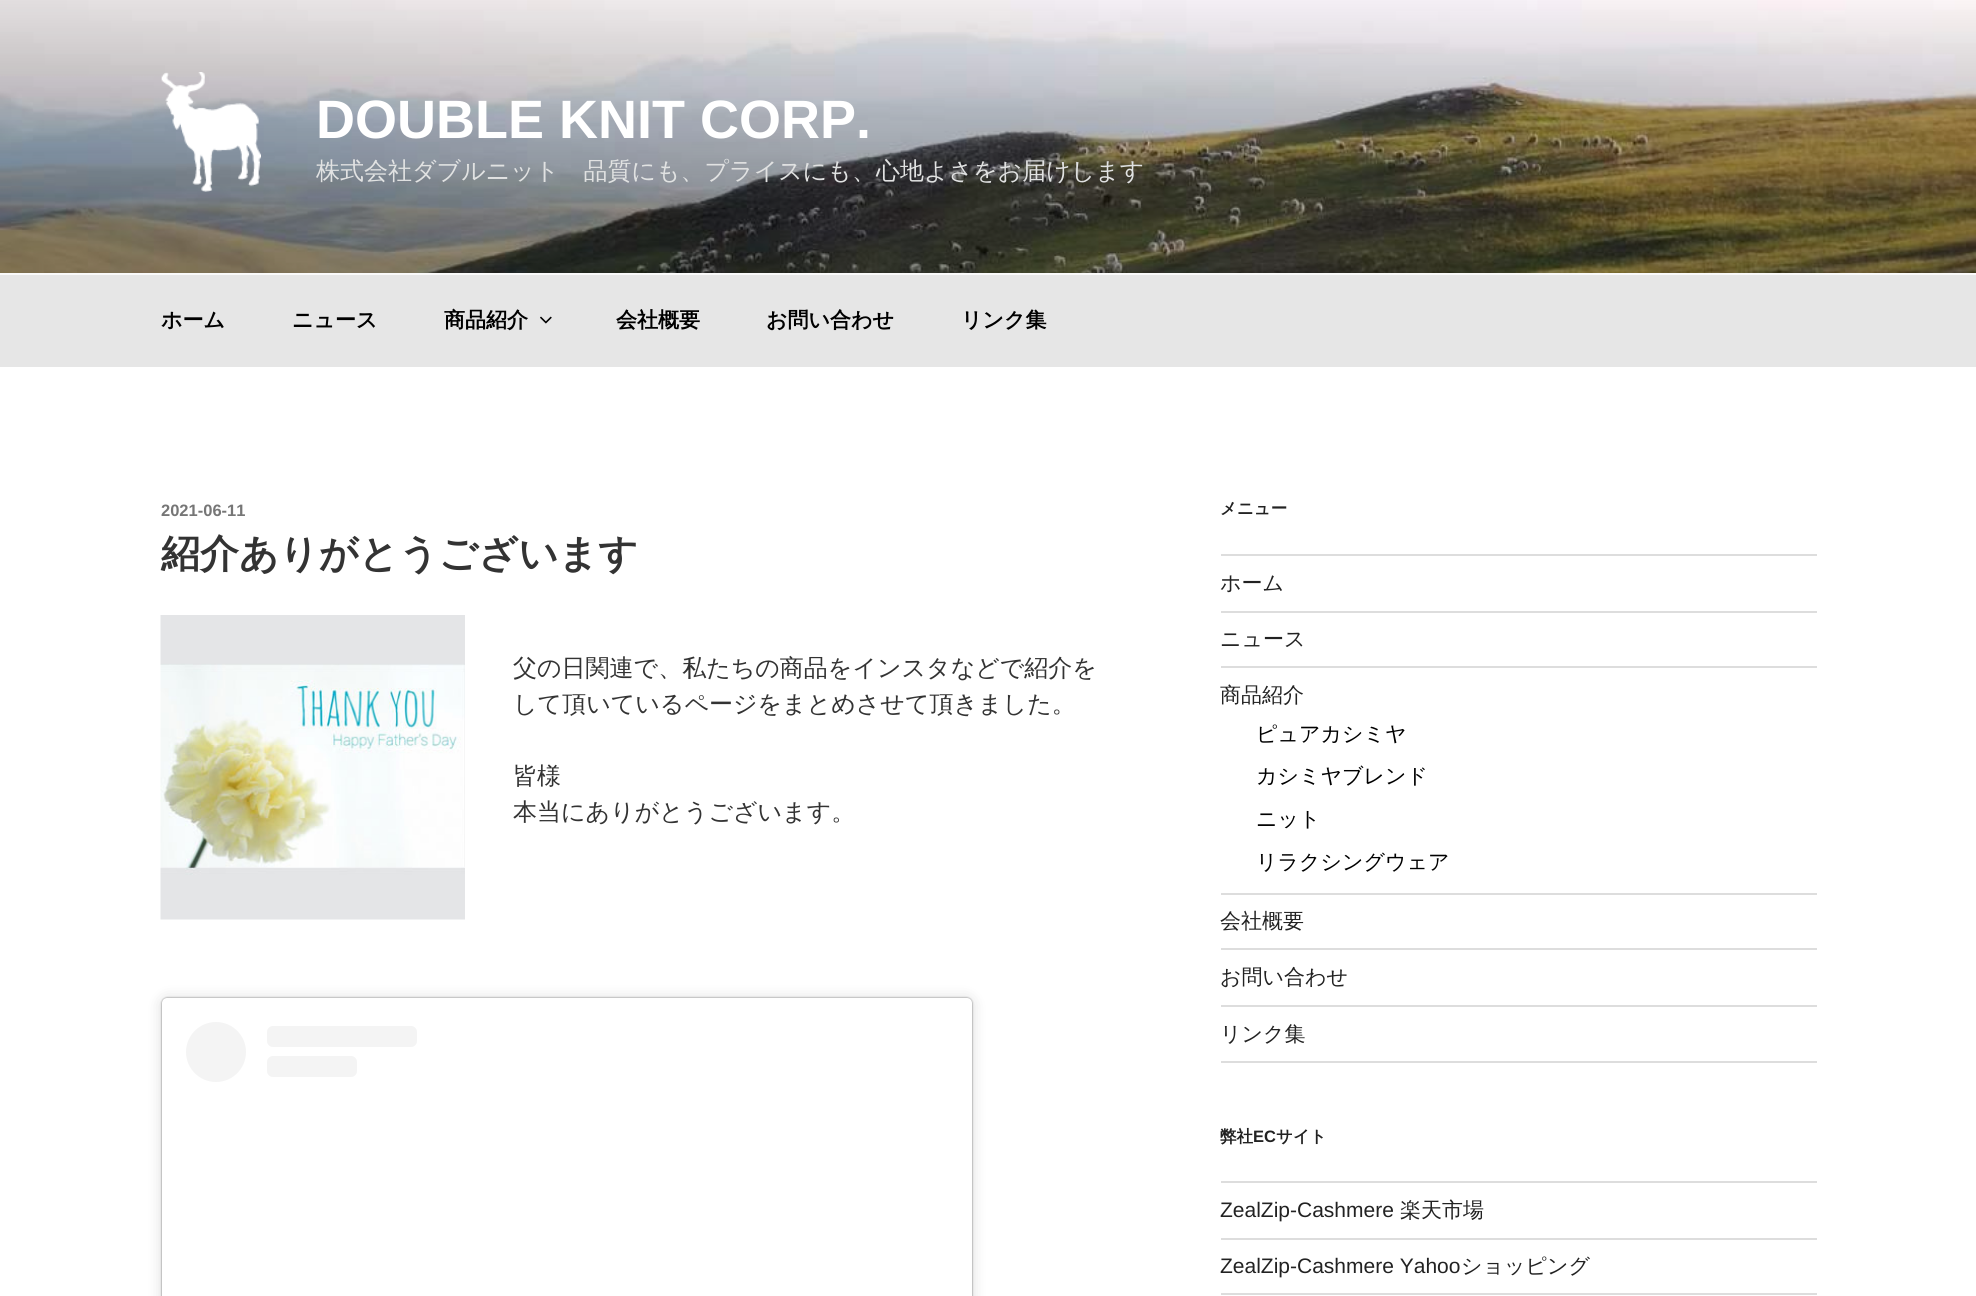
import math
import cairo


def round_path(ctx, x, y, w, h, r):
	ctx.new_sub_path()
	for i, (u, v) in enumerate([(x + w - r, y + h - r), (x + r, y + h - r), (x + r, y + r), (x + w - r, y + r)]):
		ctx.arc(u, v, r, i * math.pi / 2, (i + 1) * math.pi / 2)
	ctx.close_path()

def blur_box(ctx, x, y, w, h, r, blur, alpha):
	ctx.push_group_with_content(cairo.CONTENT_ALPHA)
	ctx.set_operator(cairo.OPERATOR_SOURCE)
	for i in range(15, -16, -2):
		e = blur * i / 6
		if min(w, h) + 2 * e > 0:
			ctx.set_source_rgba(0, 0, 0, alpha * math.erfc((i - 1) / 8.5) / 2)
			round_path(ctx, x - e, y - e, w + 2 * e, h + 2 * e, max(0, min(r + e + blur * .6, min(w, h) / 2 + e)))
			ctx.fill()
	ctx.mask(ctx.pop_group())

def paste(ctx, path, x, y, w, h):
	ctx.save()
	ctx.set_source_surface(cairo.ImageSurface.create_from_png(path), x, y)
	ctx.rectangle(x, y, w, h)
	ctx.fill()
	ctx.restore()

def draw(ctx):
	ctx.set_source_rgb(1, 1, 1)
	ctx.paint()
	ctx.set_source_rgb(0.98, 0.98, 0.98)
	ctx.rectangle(0, 273, 1976, 2)
	ctx.fill()
	paste(ctx, 'media/1.png', 0, 0, 1976, 273)
	paste(ctx, 'media/2.png', 161, 72, 100, 120)
	ctx.select_font_face('Liberation Sans', cairo.FONT_SLANT_NORMAL, cairo.FONT_WEIGHT_BOLD)
	ctx.set_font_size(54)
	ctx.set_source_rgb(1, 1, 1)
	ctx.move_to(316, 138)
	ctx.show_text('DOUBLE KNIT CORP.')
	ctx.select_font_face('WenQuanYi Zen Hei Medium')
	ctx.set_font_size(24)
	ctx.set_source_rgb(0.882, 0.886, 0.886)
	ctx.move_to(316, 179)
	ctx.show_text('株式会社ダブルニット　品質にも、プライスにも、心地よさをお届けします')
	ctx.set_source_rgb(0.902, 0.902, 0.902)
	ctx.rectangle(0, 275, 1976, 92)
	ctx.fill()
	ctx.select_font_face('WenQuanYi Zen Hei', cairo.FONT_SLANT_NORMAL, cairo.FONT_WEIGHT_BOLD)
	ctx.set_font_size(21)
	ctx.set_source_rgb(0, 0, 0)
	for x, y, s in [
		(161, 327, 'ホーム'),
		(292, 327, 'ニュース'),
		(444, 327, '商品紹介'),
	]:
		ctx.move_to(x, y)
		ctx.show_text(s)
	paste(ctx, 'media/3.png', 540, 316, 12, 8)
	for x, y, s in [
		(616, 327, '会社概要'),
		(766, 327, 'お問い合わせ'),
		(961, 327, 'リンク集'),
	]:
		ctx.move_to(x, y)
		ctx.show_text(s)
	ctx.select_font_face('Liberation Sans', cairo.FONT_SLANT_NORMAL, cairo.FONT_WEIGHT_BOLD)
	ctx.set_font_size(16.5)
	ctx.set_source_rgb(0.463, 0.463, 0.463)
	ctx.move_to(161, 516)
	ctx.show_text('2021-06-11')
	ctx.select_font_face('WenQuanYi Zen Hei', cairo.FONT_SLANT_NORMAL, cairo.FONT_WEIGHT_BOLD)
	ctx.set_font_size(39)
	ctx.set_source_rgb(0.2, 0.2, 0.2)
	ctx.move_to(161, 567)
	ctx.show_text('紹介ありがとうございます')
	paste(ctx, 'media/4.png', 160, 615, 305, 305)
	ctx.select_font_face('WenQuanYi Zen Hei Medium')
	ctx.set_font_size(24)
	for x, y, s in [
		(513, 676, '父の日関連で、私たちの商品をインスタなどで紹介を'),
		(513, 712, 'して頂いているページをまとめさせて頂きました。'),
		(513, 784, '皆様'),
		(513, 820, '本当にありがとうございます。'),
	]:
		ctx.move_to(x, y)
		ctx.show_text(s)
	ctx.set_source_rgb(0, 0, 0)
	blur_box(ctx, 162, 999, 810, 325, 5, 7.5, 0.15)
	blur_box(ctx, 162, 998, 810, 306, 5, 1, 0.5)
	ctx.set_source_rgb(1, 1, 1)
	round_path(ctx, 162, 998, 810, 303, 5)
	ctx.fill()
	ctx.set_source_rgb(0.957, 0.957, 0.957)
	ctx.arc(216, 1052, 30, 0, 2 * math.pi)
	ctx.fill()
	round_path(ctx, 267, 1026, 150, 21, 6)
	ctx.fill()
	round_path(ctx, 267, 1056, 90, 21, 6)
	ctx.fill()
	ctx.select_font_face('WenQuanYi Zen Hei', cairo.FONT_SLANT_NORMAL, cairo.FONT_WEIGHT_BOLD)
	ctx.set_font_size(16.5)
	ctx.set_source_rgb(0.133, 0.133, 0.133)
	ctx.move_to(1220, 514)
	ctx.show_text('メニュー')
	ctx.set_source_rgb(0.867, 0.867, 0.867)
	ctx.rectangle(1221, 554, 596, 2)
	ctx.fill()
	ctx.rectangle(1221, 611, 596, 2)
	ctx.fill()
	ctx.select_font_face('WenQuanYi Zen Hei Medium')
	ctx.set_font_size(21)
	ctx.set_source_rgb(0.133, 0.133, 0.133)
	ctx.move_to(1220, 590)
	ctx.show_text('ホーム')
	ctx.set_source_rgb(0.867, 0.867, 0.867)
	ctx.rectangle(1221, 666, 596, 2)
	ctx.fill()
	ctx.set_source_rgb(0.133, 0.133, 0.133)
	ctx.move_to(1220, 646)
	ctx.show_text('ニュース')
	ctx.set_source_rgb(0.867, 0.867, 0.867)
	ctx.rectangle(1221, 893, 596, 2)
	ctx.fill()
	ctx.set_source_rgb(0.133, 0.133, 0.133)
	ctx.move_to(1220, 702)
	ctx.show_text('商品紹介')
	ctx.set_source_rgb(0, 0, 0)
	for x, y, s in [
		(1256, 741, 'ピュアカシミヤ'),
		(1256, 783, 'カシミヤブレンド'),
		(1256, 826, 'ニット'),
		(1256, 869, 'リラクシングウェア'),
	]:
		ctx.move_to(x, y)
		ctx.show_text(s)
	ctx.set_source_rgb(0.867, 0.867, 0.867)
	ctx.rectangle(1221, 948, 596, 2)
	ctx.fill()
	ctx.set_source_rgb(0.133, 0.133, 0.133)
	ctx.move_to(1220, 928)
	ctx.show_text('会社概要')
	ctx.set_source_rgb(0.867, 0.867, 0.867)
	ctx.rectangle(1221, 1005, 596, 2)
	ctx.fill()
	ctx.set_source_rgb(0.133, 0.133, 0.133)
	ctx.move_to(1220, 984)
	ctx.show_text('お問い合わせ')
	ctx.set_source_rgb(0.867, 0.867, 0.867)
	ctx.rectangle(1221, 1061, 596, 2)
	ctx.fill()
	ctx.set_source_rgb(0.133, 0.133, 0.133)
	ctx.move_to(1220, 1041)
	ctx.show_text('リンク集')
	ctx.select_font_face('WenQuanYi Zen Hei', cairo.FONT_SLANT_NORMAL, cairo.FONT_WEIGHT_BOLD)
	ctx.set_font_size(16.5)
	ctx.move_to(1220, 1142)
	ctx.show_text('弊社')
	ctx.select_font_face('Liberation Sans', cairo.FONT_SLANT_NORMAL, cairo.FONT_WEIGHT_BOLD)
	ctx.move_to(1253, 1142)
	ctx.show_text('EC')
	ctx.select_font_face('WenQuanYi Zen Hei', cairo.FONT_SLANT_NORMAL, cairo.FONT_WEIGHT_BOLD)
	ctx.move_to(1276, 1142)
	ctx.show_text('サイト')
	ctx.set_source_rgb(0.867, 0.867, 0.867)
	ctx.rectangle(1221, 1181, 596, 2)
	ctx.fill()
	ctx.rectangle(1221, 1238, 596, 2)
	ctx.fill()
	ctx.select_font_face('Liberation Sans')
	ctx.set_font_size(21)
	ctx.set_source_rgb(0.133, 0.133, 0.133)
	ctx.move_to(1220, 1217)
	ctx.show_text('ZealZip-Cashmere')
	ctx.select_font_face('WenQuanYi Zen Hei Medium')
	ctx.move_to(1400, 1217)
	ctx.show_text('楽天市場')
	ctx.set_source_rgb(0.867, 0.867, 0.867)
	ctx.rectangle(1221, 1293, 596, 2)
	ctx.fill()
	ctx.select_font_face('Liberation Sans')
	ctx.set_source_rgb(0.133, 0.133, 0.133)
	ctx.move_to(1220, 1273)
	ctx.show_text('ZealZip-Cashmere Yahoo')
	ctx.select_font_face('WenQuanYi Zen Hei Medium')
	ctx.move_to(1461, 1273)
	ctx.show_text('ショッピング')


surface = cairo.ImageSurface(cairo.FORMAT_RGB24, 1976, 1296)
ctx = cairo.Context(surface)
options = cairo.FontOptions()
options.set_hint_metrics(cairo.HINT_METRICS_OFF)
options.set_hint_style(cairo.HINT_STYLE_NONE)
ctx.set_font_options(options)
ctx.set_miter_limit(4)
draw(ctx)
surface.write_to_png('image.png')
